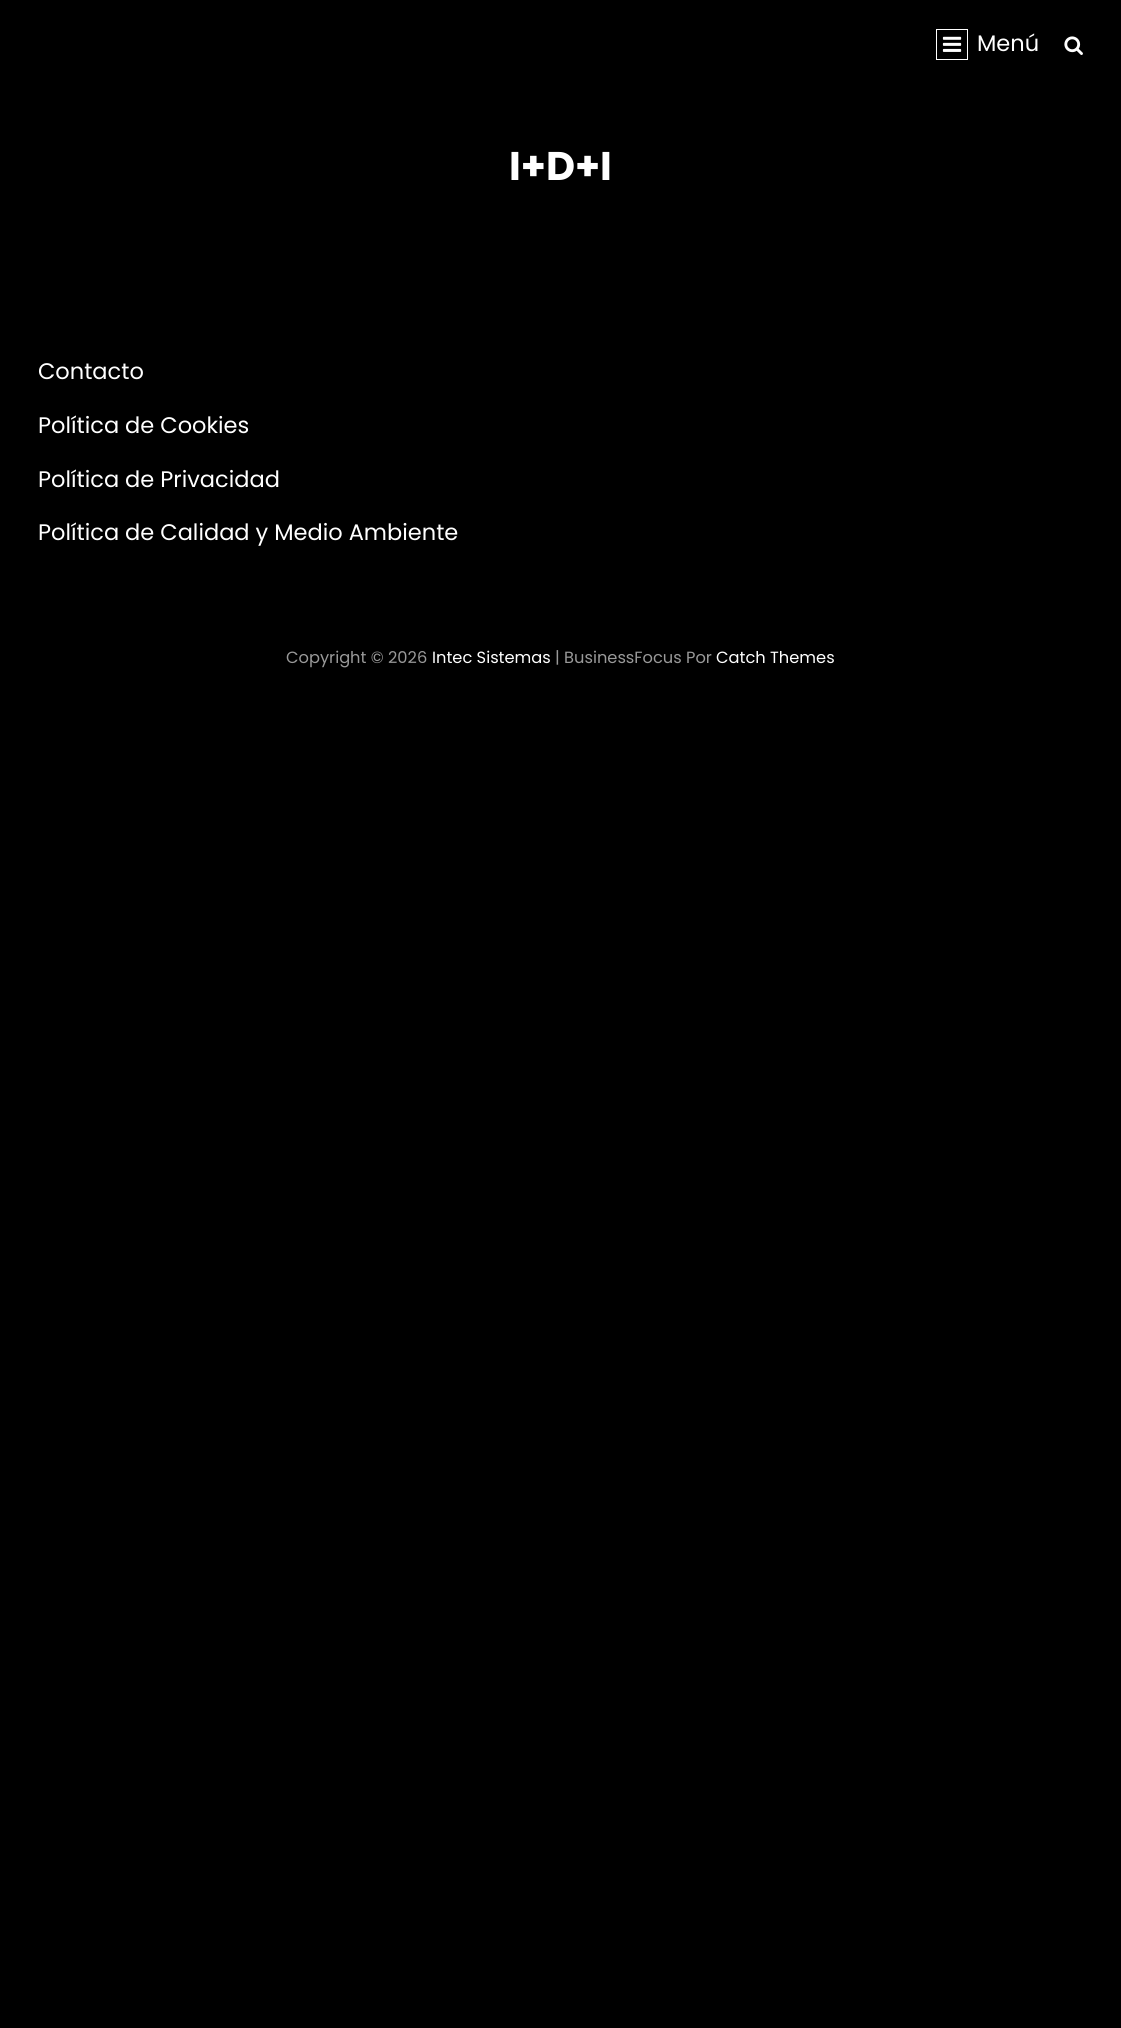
import math
import cairo


def paste(ctx, path, x, y, w, h):
	ctx.save()
	ctx.set_source_surface(cairo.ImageSurface.create_from_png(path), x, y)
	ctx.rectangle(x, y, w, h)
	ctx.fill()
	ctx.restore()

def draw(ctx):
	ctx.set_source_rgb(0, 0, 0)
	ctx.paint()
	ctx.rectangle(936.5, 29.5, 31, 30)
	ctx.set_source_rgb(1, 1, 1)
	ctx.set_line_width(1)
	ctx.stroke()
	paste(ctx, 'media/1.png', 942, 36, 20, 16)
	ctx.select_font_face('Poppins')
	ctx.set_font_size(22.5)
	ctx.move_to(977, 51)
	ctx.show_text('Menú')
	paste(ctx, 'media/2.png', 1064, 36, 19, 19)
	ctx.select_font_face('Poppins', cairo.FONT_SLANT_NORMAL, cairo.FONT_WEIGHT_BOLD)
	ctx.set_font_size(40)
	ctx.move_to(509, 180)
	ctx.show_text('I+D+I')
	ctx.select_font_face('Poppins')
	ctx.set_font_size(22.5)
	for x, y, s in [
		(38, 379, 'Contacto'),
		(38, 433, 'Política de Cookies'),
		(38, 487, 'Política de Privacidad'),
		(38, 540, 'Política de Calidad y Medio Ambiente'),
	]:
		ctx.move_to(x, y)
		ctx.show_text(s)
	ctx.set_font_size(16.25)
	ctx.set_source_rgb(0.6, 0.6, 0.6)
	ctx.move_to(286, 663)
	ctx.show_text('Copyright © 2026')
	ctx.set_source_rgb(1, 1, 1)
	ctx.move_to(432, 663)
	ctx.show_text('Intec Sistemas')
	ctx.set_source_rgb(0.6, 0.6, 0.6)
	ctx.move_to(555, 663)
	ctx.show_text('| BusinessFocus Por')
	ctx.set_source_rgb(1, 1, 1)
	ctx.move_to(716, 663)
	ctx.show_text('Catch Themes')


surface = cairo.ImageSurface(cairo.FORMAT_RGB24, 1121, 2028)
ctx = cairo.Context(surface)
options = cairo.FontOptions()
options.set_hint_metrics(cairo.HINT_METRICS_OFF)
options.set_hint_style(cairo.HINT_STYLE_NONE)
ctx.set_font_options(options)
ctx.set_miter_limit(4)
draw(ctx)
surface.write_to_png('image.png')
